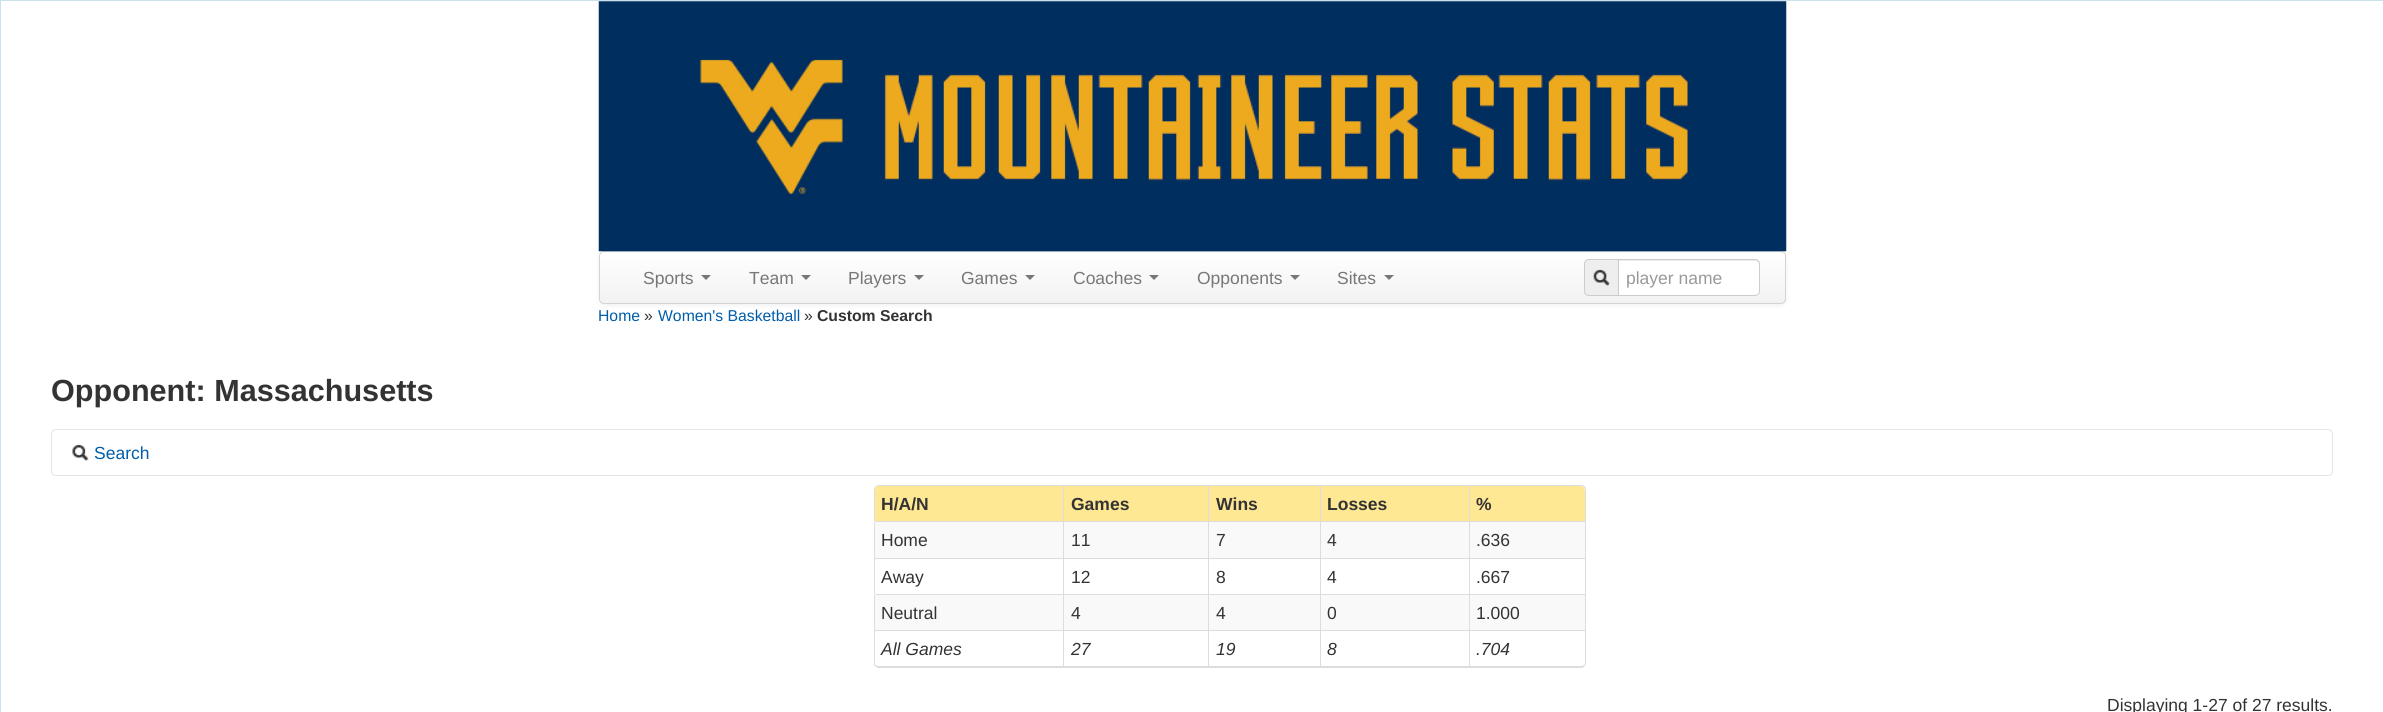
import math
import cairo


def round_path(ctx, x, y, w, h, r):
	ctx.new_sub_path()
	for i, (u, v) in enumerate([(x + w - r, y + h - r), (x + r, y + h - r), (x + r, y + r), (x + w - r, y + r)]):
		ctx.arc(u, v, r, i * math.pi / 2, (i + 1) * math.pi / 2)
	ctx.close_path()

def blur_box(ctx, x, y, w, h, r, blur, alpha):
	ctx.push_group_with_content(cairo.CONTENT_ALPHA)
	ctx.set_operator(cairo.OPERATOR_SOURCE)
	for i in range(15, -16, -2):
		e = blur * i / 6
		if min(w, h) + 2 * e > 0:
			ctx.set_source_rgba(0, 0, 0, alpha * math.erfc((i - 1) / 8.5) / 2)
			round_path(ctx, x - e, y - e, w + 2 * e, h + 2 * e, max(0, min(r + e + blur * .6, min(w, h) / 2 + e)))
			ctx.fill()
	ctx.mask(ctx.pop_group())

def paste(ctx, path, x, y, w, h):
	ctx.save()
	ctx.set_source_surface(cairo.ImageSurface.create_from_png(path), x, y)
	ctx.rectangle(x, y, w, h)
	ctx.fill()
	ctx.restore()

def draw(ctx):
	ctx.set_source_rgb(1, 1, 1)
	ctx.paint()
	ctx.rectangle(0.5, 0.5, 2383, 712)
	ctx.set_source_rgb(0.788, 0.878, 0.929)
	ctx.set_line_width(1)
	ctx.stroke()
	ctx.set_source_rgb(0, 0, 0)
	blur_box(ctx, 599, 253, 1187, 52, 5, 2.5, 0.07)
	ctx.set_source_rgb(0.98, 0.98, 0.98)
	round_path(ctx, 599, 251, 1187, 53, 5)
	ctx.fill()
	ctx.save()
	round_path(ctx, 599, 251, 1187, 53, 5)
	ctx.clip()
	gradient = cairo.LinearGradient(1193, 252, 1193, 303)
	gradient.add_color_stop_rgba(0, 1, 1, 1, 1)
	gradient.add_color_stop_rgba(1, 0.949, 0.949, 0.949, 1)
	ctx.set_source(gradient)
	ctx.rectangle(599, 253, 1187, 50)
	ctx.fill()
	ctx.restore()
	round_path(ctx, 599.5, 251.5, 1186, 52, 4.5)
	ctx.set_source_rgb(0.831, 0.831, 0.831)
	ctx.stroke()
	paste(ctx, 'media/1.png', 598, 1, 1189, 251)
	ctx.select_font_face('Liberation Sans')
	ctx.set_font_size(17.5)
	ctx.set_source_rgb(0.467, 0.467, 0.467)
	ctx.move_to(643, 284)
	ctx.show_text('Sports')
	ctx.new_path()
	ctx.move_to(701, 275)
	ctx.line_to(711, 275)
	ctx.line_to(706, 280)
	ctx.close_path()
	ctx.fill()
	ctx.move_to(749, 284)
	ctx.show_text('Team')
	ctx.new_path()
	ctx.move_to(801, 275)
	ctx.line_to(811, 275)
	ctx.line_to(806, 280)
	ctx.close_path()
	ctx.fill()
	ctx.move_to(848, 284)
	ctx.show_text('Players')
	ctx.new_path()
	ctx.move_to(914, 275)
	ctx.line_to(924, 275)
	ctx.line_to(919, 280)
	ctx.close_path()
	ctx.fill()
	ctx.move_to(961, 284)
	ctx.show_text('Games')
	ctx.new_path()
	ctx.move_to(1025, 275)
	ctx.line_to(1035, 275)
	ctx.line_to(1030, 280)
	ctx.close_path()
	ctx.fill()
	ctx.move_to(1073, 284)
	ctx.show_text('Coaches')
	ctx.new_path()
	ctx.move_to(1149, 275)
	ctx.line_to(1159, 275)
	ctx.line_to(1154, 280)
	ctx.close_path()
	ctx.fill()
	ctx.move_to(1197, 284)
	ctx.show_text('Opponents')
	ctx.new_path()
	ctx.move_to(1290, 275)
	ctx.line_to(1300, 275)
	ctx.line_to(1295, 280)
	ctx.close_path()
	ctx.fill()
	ctx.move_to(1337, 284)
	ctx.show_text('Sites')
	ctx.new_path()
	ctx.move_to(1384, 275)
	ctx.line_to(1394, 275)
	ctx.line_to(1389, 280)
	ctx.close_path()
	ctx.fill()
	ctx.set_source_rgb(0.933, 0.933, 0.933)
	ctx.new_path()
	ctx.move_to(1589, 259.5)
	ctx.line_to(1618.5, 259.5)
	ctx.line_to(1618.5, 295.5)
	ctx.line_to(1589, 295.5)
	ctx.curve_to(1586.5, 295.5, 1584.5, 293.5, 1584.5, 291)
	ctx.line_to(1584.5, 264)
	ctx.curve_to(1584.5, 261.5, 1586.5, 259.5, 1589, 259.5)
	ctx.close_path()
	ctx.fill_preserve()
	ctx.set_source_rgb(0.8, 0.8, 0.8)
	ctx.stroke()
	paste(ctx, 'media/2.png', 1593, 269, 17, 17)
	ctx.set_source_rgb(1, 1, 1)
	ctx.new_path()
	ctx.move_to(1618, 259)
	ctx.line_to(1755, 259)
	ctx.curve_to(1758, 259, 1760, 261, 1760, 264)
	ctx.line_to(1760, 291)
	ctx.curve_to(1760, 294, 1758, 296, 1755, 296)
	ctx.line_to(1618, 296)
	ctx.close_path()
	ctx.fill()
	ctx.set_source_rgb(0.925, 0.925, 0.925)
	ctx.new_path()
	ctx.move_to(1619, 261)
	ctx.line_to(1755, 261)
	ctx.curve_to(1757, 261, 1759, 263, 1759, 265)
	ctx.line_to(1759, 264)
	ctx.curve_to(1759, 262, 1757, 260, 1755, 260)
	ctx.line_to(1619, 260)
	ctx.close_path()
	ctx.fill()
	ctx.new_path()
	ctx.move_to(1618.5, 259.5)
	ctx.line_to(1755, 259.5)
	ctx.curve_to(1757.5, 259.5, 1759.5, 261.5, 1759.5, 264)
	ctx.line_to(1759.5, 291)
	ctx.curve_to(1759.5, 293.5, 1757.5, 295.5, 1755, 295.5)
	ctx.line_to(1618.5, 295.5)
	ctx.close_path()
	ctx.set_source_rgb(0.8, 0.8, 0.8)
	ctx.stroke()
	ctx.set_source_rgb(0.6, 0.6, 0.6)
	ctx.move_to(1626, 284)
	ctx.show_text('player name')
	ctx.set_font_size(15.75)
	ctx.set_source_rgb(0, 0.365, 0.667)
	ctx.move_to(598, 321)
	ctx.show_text('Home')
	ctx.set_source_rgb(0.2, 0.2, 0.2)
	ctx.move_to(644, 321)
	ctx.show_text('»')
	ctx.set_source_rgb(0, 0.365, 0.667)
	ctx.move_to(658, 321)
	ctx.show_text('Women\'s Basketball')
	ctx.set_source_rgb(0.2, 0.2, 0.2)
	ctx.move_to(804, 321)
	ctx.show_text('»')
	ctx.select_font_face('Liberation Sans', cairo.FONT_SLANT_NORMAL, cairo.FONT_WEIGHT_BOLD)
	ctx.move_to(817, 321)
	ctx.show_text('Custom Search')
	ctx.set_font_size(30.6)
	ctx.move_to(51, 401)
	ctx.show_text('Opponent: Massachusetts')
	round_path(ctx, 51.5, 429.5, 2281, 46, 4.5)
	ctx.set_source_rgb(0.898, 0.898, 0.898)
	ctx.stroke()
	paste(ctx, 'media/3.png', 72, 444, 17, 18)
	ctx.select_font_face('Liberation Sans')
	ctx.set_font_size(17.5)
	ctx.set_source_rgb(0, 0.365, 0.667)
	ctx.move_to(94, 459)
	ctx.show_text('Search')
	ctx.set_source_rgb(0.867, 0.867, 0.867)
	ctx.set_fill_rule(cairo.FILL_RULE_EVEN_ODD)
	ctx.new_path()
	ctx.move_to(879, 485)
	ctx.line_to(1581, 485)
	ctx.curve_to(1584, 485, 1586, 487, 1586, 490)
	ctx.line_to(1586, 662)
	ctx.curve_to(1586, 665, 1584, 668, 1581, 668)
	ctx.line_to(879, 668)
	ctx.curve_to(876, 668, 874, 665, 874, 662)
	ctx.line_to(874, 490)
	ctx.curve_to(874, 487, 876, 485, 879, 485)
	ctx.close_path()
	ctx.move_to(879, 486)
	ctx.line_to(1581, 486)
	ctx.curve_to(1583, 486, 1585, 488, 1585, 490)
	ctx.line_to(1585, 662)
	ctx.curve_to(1585, 665, 1583, 666, 1581, 666)
	ctx.line_to(879, 666)
	ctx.curve_to(876, 666, 874, 665, 874, 662)
	ctx.line_to(874, 490)
	ctx.curve_to(874, 488, 876, 486, 879, 486)
	ctx.close_path()
	ctx.fill()
	ctx.set_source_rgb(1, 0.91, 0.58)
	ctx.new_path()
	ctx.move_to(879, 486)
	ctx.line_to(1063, 486)
	ctx.line_to(1063, 521)
	ctx.line_to(874, 521)
	ctx.line_to(874, 491)
	ctx.curve_to(874, 488, 876, 486, 879, 486)
	ctx.close_path()
	ctx.fill()
	ctx.set_source_rgb(0.867, 0.867, 0.867)
	ctx.rectangle(874, 489, 1, 32)
	ctx.fill()
	ctx.select_font_face('Liberation Sans', cairo.FONT_SLANT_NORMAL, cairo.FONT_WEIGHT_BOLD)
	ctx.set_source_rgb(0.2, 0.2, 0.2)
	ctx.move_to(881, 510)
	ctx.show_text('H/A/N')
	ctx.set_source_rgb(1, 0.91, 0.58)
	ctx.rectangle(1064, 486, 144, 35)
	ctx.fill()
	ctx.set_source_rgb(0.867, 0.867, 0.867)
	ctx.rectangle(1063, 486, 1, 35)
	ctx.fill()
	ctx.set_source_rgb(0.2, 0.2, 0.2)
	ctx.move_to(1071, 510)
	ctx.show_text('Games')
	ctx.set_source_rgb(1, 0.91, 0.58)
	ctx.rectangle(1209, 486, 111, 35)
	ctx.fill()
	ctx.set_source_rgb(0.867, 0.867, 0.867)
	ctx.rectangle(1208, 486, 1, 35)
	ctx.fill()
	ctx.set_source_rgb(0.2, 0.2, 0.2)
	ctx.move_to(1216, 510)
	ctx.show_text('Wins')
	ctx.set_source_rgb(1, 0.91, 0.58)
	ctx.rectangle(1321, 486, 148, 35)
	ctx.fill()
	ctx.set_source_rgb(0.867, 0.867, 0.867)
	ctx.rectangle(1320, 486, 1, 35)
	ctx.fill()
	ctx.set_source_rgb(0.2, 0.2, 0.2)
	ctx.move_to(1327, 510)
	ctx.show_text('Losses')
	ctx.set_source_rgb(1, 0.91, 0.58)
	ctx.new_path()
	ctx.move_to(1469, 486)
	ctx.line_to(1580, 486)
	ctx.curve_to(1583, 486, 1585, 488, 1585, 491)
	ctx.line_to(1585, 521)
	ctx.line_to(1469, 521)
	ctx.close_path()
	ctx.fill()
	ctx.set_source_rgb(0.867, 0.867, 0.867)
	ctx.rectangle(1469, 486, 1, 35)
	ctx.fill()
	ctx.set_source_rgb(0.2, 0.2, 0.2)
	ctx.move_to(1476, 510)
	ctx.show_text('%')
	ctx.set_source_rgb(0.976, 0.976, 0.976)
	ctx.rectangle(875, 522, 188, 36)
	ctx.fill()
	ctx.set_source_rgb(0.867, 0.867, 0.867)
	ctx.rectangle(874, 521, 711, 1)
	ctx.rectangle(874, 521, 1, 37)
	ctx.fill()
	ctx.select_font_face('Liberation Sans')
	ctx.set_source_rgb(0.2, 0.2, 0.2)
	ctx.move_to(881, 546)
	ctx.show_text('Home')
	ctx.set_source_rgb(0.976, 0.976, 0.976)
	ctx.rectangle(1064, 522, 144, 36)
	ctx.fill()
	ctx.set_source_rgb(0.867, 0.867, 0.867)
	ctx.rectangle(1063, 521, 1, 37)
	ctx.fill()
	ctx.set_source_rgb(0.2, 0.2, 0.2)
	ctx.move_to(1071, 546)
	ctx.show_text('11')
	ctx.set_source_rgb(0.976, 0.976, 0.976)
	ctx.rectangle(1209, 522, 111, 36)
	ctx.fill()
	ctx.set_source_rgb(0.867, 0.867, 0.867)
	ctx.rectangle(1208, 521, 1, 37)
	ctx.fill()
	ctx.set_source_rgb(0.2, 0.2, 0.2)
	ctx.move_to(1216, 546)
	ctx.show_text('7')
	ctx.set_source_rgb(0.976, 0.976, 0.976)
	ctx.rectangle(1321, 522, 148, 36)
	ctx.fill()
	ctx.set_source_rgb(0.867, 0.867, 0.867)
	ctx.rectangle(1320, 521, 1, 37)
	ctx.fill()
	ctx.set_source_rgb(0.2, 0.2, 0.2)
	ctx.move_to(1327, 546)
	ctx.show_text('4')
	ctx.set_source_rgb(0.976, 0.976, 0.976)
	ctx.rectangle(1470, 522, 115, 36)
	ctx.fill()
	ctx.set_source_rgb(0.867, 0.867, 0.867)
	ctx.rectangle(1469, 521, 1, 37)
	ctx.fill()
	ctx.set_source_rgb(0.2, 0.2, 0.2)
	ctx.move_to(1476, 546)
	ctx.show_text('.636')
	ctx.set_source_rgb(0.867, 0.867, 0.867)
	ctx.rectangle(874, 558, 711, 1)
	ctx.fill()
	ctx.rectangle(874, 558, 1, 36)
	ctx.fill()
	ctx.set_source_rgb(0.2, 0.2, 0.2)
	ctx.move_to(881, 583)
	ctx.show_text('Away')
	ctx.set_source_rgb(0.867, 0.867, 0.867)
	ctx.rectangle(1063, 558, 1, 36)
	ctx.fill()
	ctx.set_source_rgb(0.2, 0.2, 0.2)
	ctx.move_to(1071, 583)
	ctx.show_text('12')
	ctx.set_source_rgb(0.867, 0.867, 0.867)
	ctx.rectangle(1208, 558, 1, 36)
	ctx.fill()
	ctx.set_source_rgb(0.2, 0.2, 0.2)
	ctx.move_to(1216, 583)
	ctx.show_text('8')
	ctx.set_source_rgb(0.867, 0.867, 0.867)
	ctx.rectangle(1320, 558, 1, 36)
	ctx.fill()
	ctx.set_source_rgb(0.2, 0.2, 0.2)
	ctx.move_to(1327, 583)
	ctx.show_text('4')
	ctx.set_source_rgb(0.867, 0.867, 0.867)
	ctx.rectangle(1469, 558, 1, 36)
	ctx.fill()
	ctx.set_source_rgb(0.2, 0.2, 0.2)
	ctx.move_to(1476, 583)
	ctx.show_text('.667')
	ctx.set_source_rgb(0.976, 0.976, 0.976)
	ctx.rectangle(875, 595, 188, 35)
	ctx.fill()
	ctx.set_source_rgb(0.867, 0.867, 0.867)
	ctx.rectangle(874, 594, 711, 1)
	ctx.rectangle(874, 594, 1, 36)
	ctx.fill()
	ctx.set_source_rgb(0.2, 0.2, 0.2)
	ctx.move_to(881, 619)
	ctx.show_text('Neutral')
	ctx.set_source_rgb(0.976, 0.976, 0.976)
	ctx.rectangle(1064, 595, 144, 35)
	ctx.fill()
	ctx.set_source_rgb(0.867, 0.867, 0.867)
	ctx.rectangle(1063, 594, 1, 36)
	ctx.fill()
	ctx.set_source_rgb(0.2, 0.2, 0.2)
	ctx.move_to(1071, 619)
	ctx.show_text('4')
	ctx.set_source_rgb(0.976, 0.976, 0.976)
	ctx.rectangle(1209, 595, 111, 35)
	ctx.fill()
	ctx.set_source_rgb(0.867, 0.867, 0.867)
	ctx.rectangle(1208, 594, 1, 36)
	ctx.fill()
	ctx.set_source_rgb(0.2, 0.2, 0.2)
	ctx.move_to(1216, 619)
	ctx.show_text('4')
	ctx.set_source_rgb(0.976, 0.976, 0.976)
	ctx.rectangle(1321, 595, 148, 35)
	ctx.fill()
	ctx.set_source_rgb(0.867, 0.867, 0.867)
	ctx.rectangle(1320, 594, 1, 36)
	ctx.fill()
	ctx.set_source_rgb(0.2, 0.2, 0.2)
	ctx.move_to(1327, 619)
	ctx.show_text('0')
	ctx.set_source_rgb(0.976, 0.976, 0.976)
	ctx.rectangle(1470, 595, 115, 35)
	ctx.fill()
	ctx.set_source_rgb(0.867, 0.867, 0.867)
	ctx.rectangle(1469, 594, 1, 36)
	ctx.fill()
	ctx.set_source_rgb(0.2, 0.2, 0.2)
	ctx.move_to(1476, 619)
	ctx.show_text('1.000')
	ctx.set_source_rgb(0.867, 0.867, 0.867)
	ctx.rectangle(874, 630, 711, 1)
	ctx.fill()
	ctx.rectangle(874, 630, 1, 36)
	ctx.fill()
	ctx.select_font_face('Liberation Sans', cairo.FONT_SLANT_ITALIC)
	ctx.set_source_rgb(0.2, 0.2, 0.2)
	ctx.move_to(881, 655)
	ctx.show_text('All Games')
	ctx.set_source_rgb(0.867, 0.867, 0.867)
	ctx.rectangle(1063, 630, 1, 36)
	ctx.fill()
	ctx.set_source_rgb(0.2, 0.2, 0.2)
	ctx.move_to(1071, 655)
	ctx.show_text('27')
	ctx.set_source_rgb(0.867, 0.867, 0.867)
	ctx.rectangle(1208, 630, 1, 36)
	ctx.fill()
	ctx.set_source_rgb(0.2, 0.2, 0.2)
	ctx.move_to(1216, 655)
	ctx.show_text('19')
	ctx.set_source_rgb(0.867, 0.867, 0.867)
	ctx.rectangle(1320, 630, 1, 36)
	ctx.fill()
	ctx.set_source_rgb(0.2, 0.2, 0.2)
	ctx.move_to(1327, 655)
	ctx.show_text('8')
	ctx.set_source_rgb(0.867, 0.867, 0.867)
	ctx.rectangle(1469, 630, 1, 36)
	ctx.fill()
	ctx.set_source_rgb(0.2, 0.2, 0.2)
	ctx.move_to(1476, 655)
	ctx.show_text('.704')
	ctx.select_font_face('Liberation Sans')
	ctx.move_to(2107, 711)
	ctx.show_text('Displaying 1-27 of 27 results.')


surface = cairo.ImageSurface(cairo.FORMAT_RGB24, 2383, 712)
ctx = cairo.Context(surface)
options = cairo.FontOptions()
options.set_hint_metrics(cairo.HINT_METRICS_OFF)
options.set_hint_style(cairo.HINT_STYLE_NONE)
ctx.set_font_options(options)
ctx.set_miter_limit(4)
draw(ctx)
surface.write_to_png('image.png')
